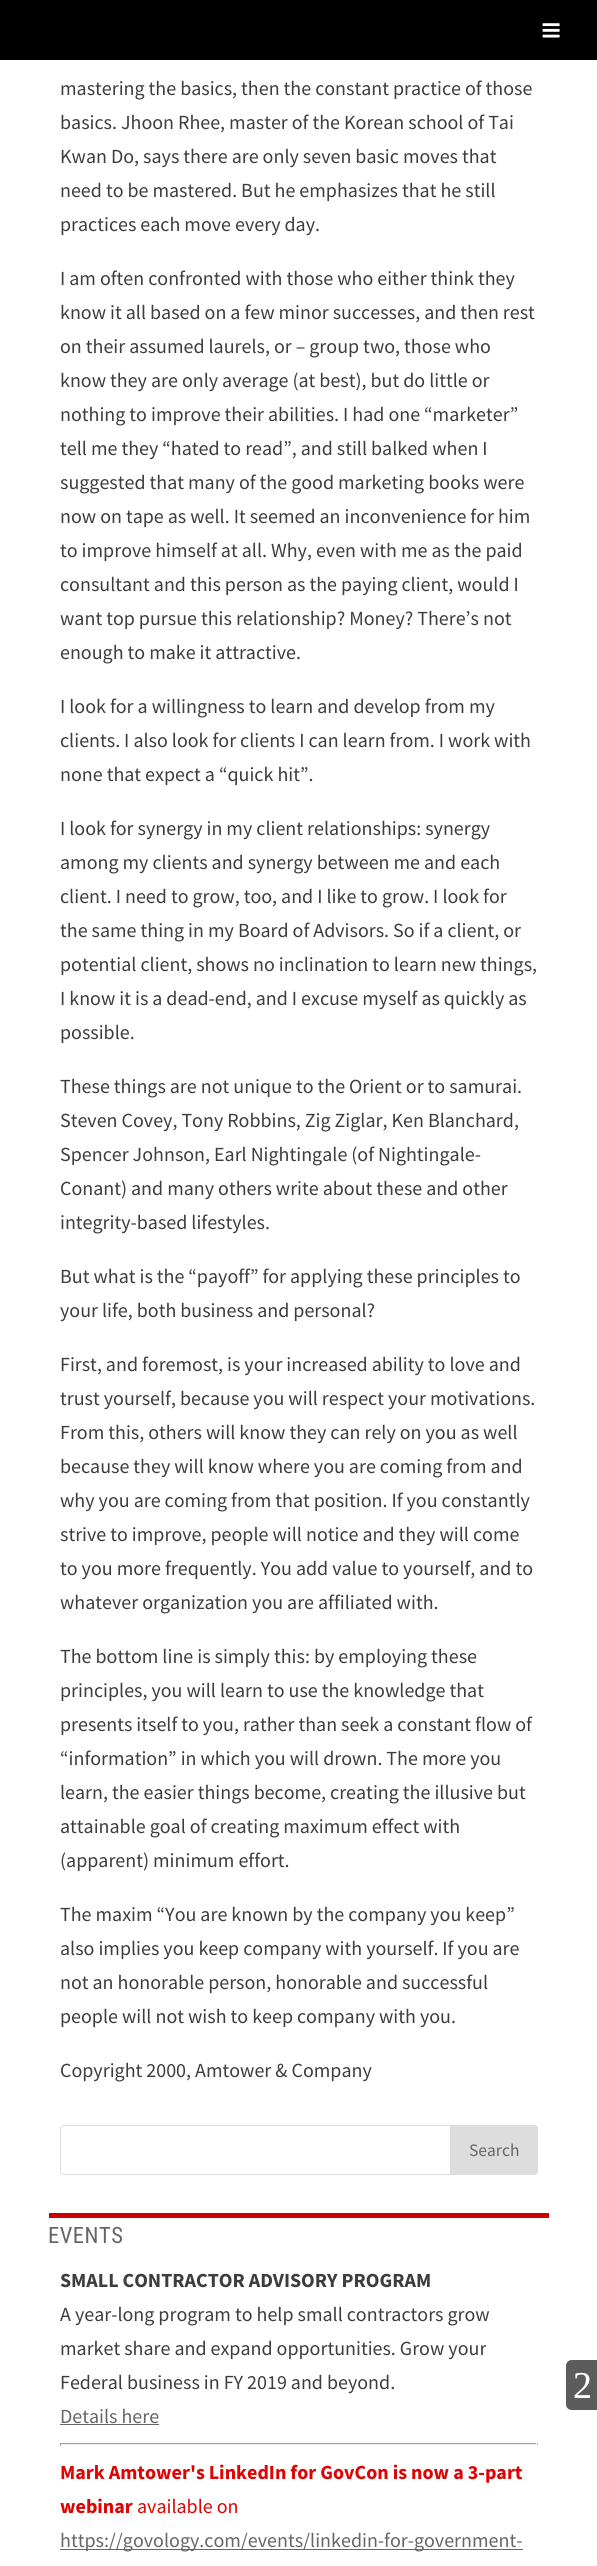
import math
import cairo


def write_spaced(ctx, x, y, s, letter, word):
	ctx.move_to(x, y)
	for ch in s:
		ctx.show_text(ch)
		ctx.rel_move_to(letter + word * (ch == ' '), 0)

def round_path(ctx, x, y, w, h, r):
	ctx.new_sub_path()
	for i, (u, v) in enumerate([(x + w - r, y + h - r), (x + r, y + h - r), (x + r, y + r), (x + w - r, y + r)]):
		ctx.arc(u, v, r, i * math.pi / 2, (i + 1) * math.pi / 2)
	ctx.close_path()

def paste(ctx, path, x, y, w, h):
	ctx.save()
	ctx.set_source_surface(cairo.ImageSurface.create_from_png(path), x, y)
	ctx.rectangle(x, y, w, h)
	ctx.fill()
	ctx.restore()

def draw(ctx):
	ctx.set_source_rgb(1, 1, 1)
	ctx.paint()
	ctx.set_source_rgb(0, 0, 0)
	ctx.rectangle(0, 0, 597, 60)
	ctx.fill()
	paste(ctx, 'media/1.png', 542, 23, 18, 15)
	ctx.select_font_face('Source Sans Pro')
	ctx.set_font_size(20)
	ctx.set_source_rgb(0.239, 0.239, 0.239)
	for x, y, s in [
		(60, 95, 'mastering the basics, then the constant practice of those'),
		(60, 129, 'basics. Jhoon Rhee, master of the Korean school of Tai'),
		(60, 163, 'Kwan Do, says there are only seven basic moves that'),
		(60, 197, 'need to be mastered. But he emphasizes that he still'),
		(60, 231, 'practices each move every day.'),
		(60, 285, 'I am often confronted with those who either think they'),
		(60, 319, 'know it all based on a few minor successes, and then rest'),
		(60, 353, 'on their assumed laurels, or – group two, those who'),
		(60, 387, 'know they are only average (at best), but do little or'),
		(60, 421, 'nothing to improve their abilities. I had one “marketer”'),
		(60, 455, 'tell me they “hated to read”, and still balked when I'),
		(60, 489, 'suggested that many of the good marketing books were'),
		(60, 523, 'now on tape as well. It seemed an inconvenience for him'),
		(60, 557, 'to improve himself at all. Why, even with me as the paid'),
		(60, 591, 'consultant and this person as the paying client, would I'),
		(60, 625, 'want top pursue this relationship? Money? There’s not'),
		(60, 659, 'enough to make it attractive.'),
		(60, 713, 'I look for a willingness to learn and develop from my'),
		(60, 747, 'clients. I also look for clients I can learn from. I work with'),
		(60, 781, 'none that expect a “quick hit”.'),
		(60, 835, 'I look for synergy in my client relationships: synergy'),
		(60, 869, 'among my clients and synergy between me and each'),
		(60, 903, 'client. I need to grow, too, and I like to grow. I look for'),
		(60, 937, 'the same thing in my Board of Advisors. So if a client, or'),
		(60, 971, 'potential client, shows no inclination to learn new things,'),
		(60, 1005, 'I know it is a dead-end, and I excuse myself as quickly as'),
		(60, 1039, 'possible.'),
		(60, 1093, 'These things are not unique to the Orient or to samurai.'),
		(60, 1127, 'Steven Covey, Tony Robbins, Zig Ziglar, Ken Blanchard,'),
		(60, 1161, 'Spencer Johnson, Earl Nightingale (of Nightingale-'),
		(60, 1195, 'Conant) and many others write about these and other'),
		(60, 1229, 'integrity-based lifestyles.'),
		(60, 1283, 'But what is the “payoff” for applying these principles to'),
		(60, 1317, 'your life, both business and personal?'),
		(60, 1371, 'First, and foremost, is your increased ability to love and'),
		(60, 1405, 'trust yourself, because you will respect your motivations.'),
		(60, 1439, 'From this, others will know they can rely on you as well'),
		(60, 1473, 'because they will know where you are coming from and'),
		(60, 1507, 'why you are coming from that position. If you constantly'),
		(60, 1541, 'strive to improve, people will notice and they will come'),
		(60, 1575, 'to you more frequently. You add value to yourself, and to'),
		(60, 1609, 'whatever organization you are affiliated with.'),
		(60, 1663, 'The bottom line is simply this: by employing these'),
		(60, 1697, 'principles, you will learn to use the knowledge that'),
		(60, 1731, 'presents itself to you, rather than seek a constant flow of'),
		(60, 1765, '“information” in which you will drown. The more you'),
		(60, 1799, 'learn, the easier things become, creating the illusive but'),
		(60, 1833, 'attainable goal of creating maximum effect with'),
		(60, 1867, '(apparent) minimum effort.'),
		(60, 1921, 'The maxim “You are known by the company you keep”'),
		(60, 1955, 'also implies you keep company with yourself. If you are'),
		(60, 1989, 'not an honorable person, honorable and successful'),
		(60, 2023, 'people will not wish to keep company with you.'),
		(60, 2077, 'Copyright 2000, Amtower & Company'),
	]:
		ctx.move_to(x, y)
		ctx.show_text(s)
	round_path(ctx, 60.5, 2125.5, 477, 49, 3.5)
	ctx.set_source_rgb(0.867, 0.867, 0.867)
	ctx.set_line_width(1)
	ctx.stroke()
	ctx.new_path()
	ctx.move_to(450.5, 2125.5)
	ctx.line_to(534, 2125.5)
	ctx.curve_to(536, 2125.5, 537.5, 2127, 537.5, 2129)
	ctx.line_to(537.5, 2171)
	ctx.curve_to(537.5, 2173, 536, 2174.5, 534, 2174.5)
	ctx.line_to(450.5, 2174.5)
	ctx.close_path()
	ctx.fill_preserve()
	ctx.stroke()
	ctx.set_font_size(17.5)
	ctx.set_source_rgb(0.4, 0.4, 0.4)
	ctx.move_to(469, 2156)
	ctx.show_text('Search')
	ctx.set_source_rgb(0.8, 0, 0)
	ctx.rectangle(49, 2213, 500, 5)
	ctx.fill()
	ctx.select_font_face('Roboto Condensed')
	ctx.set_font_size(22.5)
	ctx.set_source_rgb(0.4, 0.4, 0.4)
	write_spaced(ctx, 48, 2243, 'EVENTS', 0.5, 0)
	ctx.select_font_face('Source Sans Pro', cairo.FONT_SLANT_NORMAL, cairo.FONT_WEIGHT_BOLD)
	ctx.set_font_size(20)
	ctx.set_source_rgb(0.239, 0.239, 0.239)
	ctx.move_to(60, 2287)
	ctx.show_text('SMALL CONTRACTOR ADVISORY PROGRAM')
	ctx.select_font_face('Source Sans Pro')
	for x, y, s in [
		(60, 2321, 'A year-long program to help small contractors grow'),
		(60, 2355, 'market share and expand opportunities. Grow your'),
		(60, 2389, 'Federal business in FY 2019 and beyond.'),
	]:
		ctx.move_to(x, y)
		ctx.show_text(s)
	ctx.set_source_rgb(0.4, 0.4, 0.4)
	ctx.move_to(60, 2423)
	ctx.show_text('Details here')
	ctx.rectangle(60, 2424, 99, 1)
	ctx.fill()
	ctx.set_source_rgb(0.624, 0.624, 0.624)
	ctx.rectangle(60, 2443, 478, 1)
	ctx.fill()
	ctx.set_source_rgb(0.933, 0.933, 0.933)
	ctx.rectangle(536, 2443, 1, 3)
	ctx.rectangle(60, 2444, 478, 1)
	ctx.fill()
	ctx.set_source_rgb(0.624, 0.624, 0.624)
	ctx.rectangle(60, 2443, 1, 3)
	ctx.fill()
	ctx.select_font_face('Source Sans Pro', cairo.FONT_SLANT_NORMAL, cairo.FONT_WEIGHT_BOLD)
	ctx.set_source_rgb(0.875, 0.012, 0.012)
	ctx.move_to(60, 2479)
	ctx.show_text('Mark Amtower\'s LinkedIn for GovCon is now a 3-part')
	ctx.move_to(60, 2513)
	ctx.show_text('webinar')
	ctx.select_font_face('Source Sans Pro')
	ctx.move_to(137, 2513)
	ctx.show_text('available on')
	ctx.set_source_rgb(0.4, 0.4, 0.4)
	ctx.rectangle(60, 2549, 463, 1)
	ctx.fill()
	ctx.move_to(60, 2547)
	ctx.show_text('https://govology.com/events/linkedin-for-government-')
	ctx.set_source_rgb(0.6, 0.6, 0.6)
	ctx.new_path()
	ctx.move_to(572, 2360)
	ctx.line_to(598, 2360)
	ctx.line_to(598, 2410)
	ctx.line_to(572, 2410)
	ctx.curve_to(568.5, 2410, 566, 2407.5, 566, 2404)
	ctx.line_to(566, 2366)
	ctx.curve_to(566, 2362.5, 568.5, 2360, 572, 2360)
	ctx.close_path()
	ctx.fill()
	ctx.select_font_face('Liberation Serif')
	ctx.set_font_size(38)
	ctx.set_source_rgb(1, 1, 1)
	ctx.move_to(573, 2398)
	ctx.show_text('2')
	ctx.set_source_rgba(0, 0, 0, 0.4)
	ctx.new_path()
	ctx.move_to(572, 2360)
	ctx.line_to(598, 2360)
	ctx.line_to(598, 2410)
	ctx.line_to(572, 2410)
	ctx.curve_to(568.5, 2410, 566, 2407.5, 566, 2404)
	ctx.line_to(566, 2366)
	ctx.curve_to(566, 2362.5, 568.5, 2360, 572, 2360)
	ctx.close_path()
	ctx.fill()
	ctx.set_source_rgb(1, 1, 1)
	ctx.move_to(573, 2398)
	ctx.show_text('2')


surface = cairo.ImageSurface(cairo.FORMAT_RGB24, 597, 2566)
ctx = cairo.Context(surface)
options = cairo.FontOptions()
options.set_hint_metrics(cairo.HINT_METRICS_OFF)
options.set_hint_style(cairo.HINT_STYLE_NONE)
ctx.set_font_options(options)
ctx.set_miter_limit(4)
draw(ctx)
surface.write_to_png('image.png')
